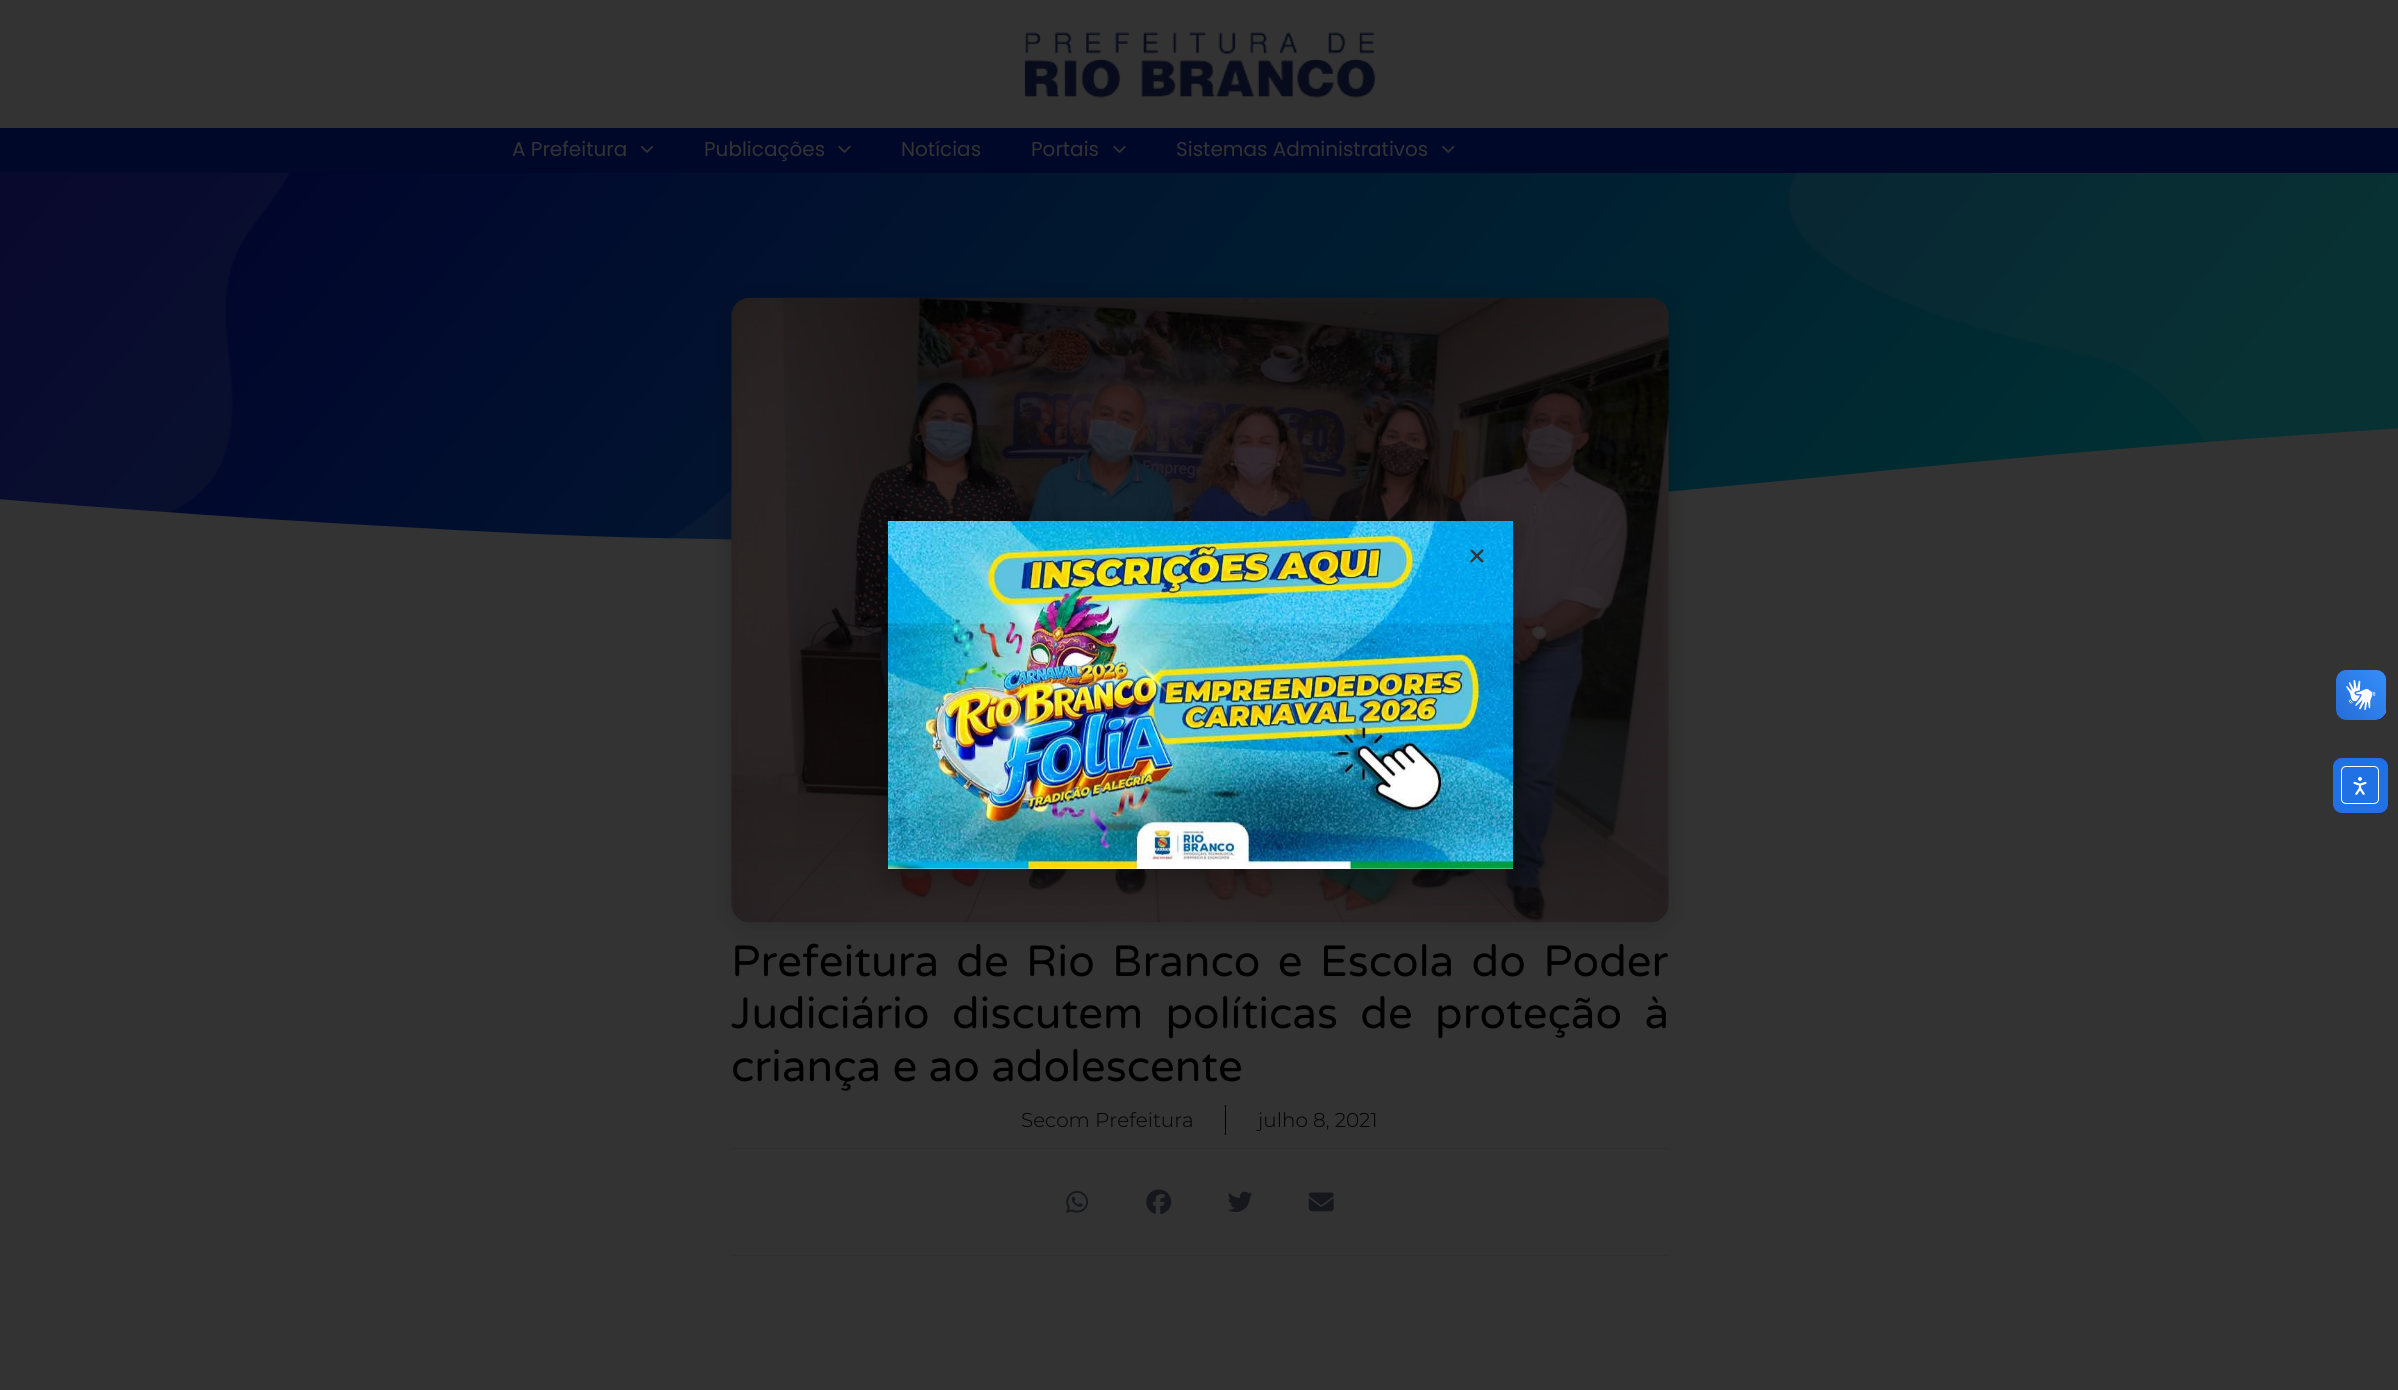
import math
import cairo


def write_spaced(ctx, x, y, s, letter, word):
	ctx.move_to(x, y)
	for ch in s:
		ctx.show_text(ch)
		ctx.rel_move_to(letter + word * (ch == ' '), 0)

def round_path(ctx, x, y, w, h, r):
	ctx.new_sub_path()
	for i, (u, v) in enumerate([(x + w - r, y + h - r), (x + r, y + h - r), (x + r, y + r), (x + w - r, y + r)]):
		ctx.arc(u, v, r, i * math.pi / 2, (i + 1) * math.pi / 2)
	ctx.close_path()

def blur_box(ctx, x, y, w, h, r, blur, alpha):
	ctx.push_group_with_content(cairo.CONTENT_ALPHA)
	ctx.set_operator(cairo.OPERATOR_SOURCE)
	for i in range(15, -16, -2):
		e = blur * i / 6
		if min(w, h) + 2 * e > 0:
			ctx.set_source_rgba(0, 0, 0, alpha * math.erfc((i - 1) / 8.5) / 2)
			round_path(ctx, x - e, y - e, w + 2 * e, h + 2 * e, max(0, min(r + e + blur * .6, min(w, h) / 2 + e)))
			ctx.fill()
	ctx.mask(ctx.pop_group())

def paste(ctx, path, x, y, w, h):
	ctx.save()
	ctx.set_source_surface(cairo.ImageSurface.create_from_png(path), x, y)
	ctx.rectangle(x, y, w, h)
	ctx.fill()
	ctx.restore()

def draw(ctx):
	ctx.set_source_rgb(0.2, 0.2, 0.2)
	ctx.paint()
	paste(ctx, 'media/1.png', 1024, 32, 352, 66)
	ctx.set_source_rgb(0, 0.035, 0.161)
	ctx.rectangle(0, 128, 2398, 45)
	ctx.fill()
	ctx.select_font_face('Poppins')
	ctx.set_font_size(20)
	ctx.set_source_rgb(0.2, 0.2, 0.2)
	ctx.move_to(512, 156)
	ctx.show_text('A Prefeitura')
	paste(ctx, 'media/2.png', 640, 145, 14, 8)
	ctx.move_to(704, 156)
	ctx.show_text('Publicações')
	paste(ctx, 'media/3.png', 838, 145, 13, 8)
	ctx.move_to(901, 156)
	ctx.show_text('Notícias')
	ctx.move_to(1031, 156)
	ctx.show_text('Portais')
	paste(ctx, 'media/3.png', 1113, 145, 13, 8)
	ctx.move_to(1176, 156)
	ctx.show_text('Sistemas Administrativos')
	paste(ctx, 'media/4.png', 1442, 145, 13, 8)
	gradient = cairo.LinearGradient(403, -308, 1996, 1028)
	gradient.add_color_stop_rgba(0, 0.004, 0, 0.173, 1)
	gradient.add_color_stop_rgba(0.89, 0, 0.188, 0.2, 1)
	ctx.set_source(gradient)
	ctx.rectangle(0, 173, 2398, 367)
	ctx.fill()
	paste(ctx, 'media/10.png', 0, 172, 2398, 368)
	ctx.set_source_rgb(0.2, 0.2, 0.2)
	ctx.new_path()
	ctx.move_to(713, 539)
	ctx.curve_to(854, 543, 1034, 538, 1184, 531)
	ctx.curve_to(1331, 524, 1626, 496, 1811, 478)
	ctx.curve_to(2284, 429, 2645, 411, 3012, 403)
	ctx.curve_to(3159, 400, 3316, 398, 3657, 407)
	ctx.curve_to(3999, 416, 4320, 445, 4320, 445)
	ctx.line_to(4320, 549)
	ctx.line_to(-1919, 549)
	ctx.line_to(-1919, 503)
	ctx.curve_to(-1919, 503, -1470, 454, -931, 458)
	ctx.curve_to(-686, 459, -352, 468, -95, 491)
	ctx.curve_to(37, 503, 231, 518, 402, 527)
	ctx.curve_to(572, 537, 649, 538, 713, 539)
	ctx.close_path()
	ctx.fill()
	ctx.set_source_rgb(0, 0, 0)
	blur_box(ctx, 731, 298, 938, 625, 19, 12.5, 0.2)
	paste(ctx, 'media/11.png', 731, 297, 938, 626)
	blur_box(ctx, 886, 528, 633, 355, 0, 14.5, 0.2)
	ctx.set_source_rgb(1, 1, 1)
	ctx.rectangle(888, 868, 625, 1)
	ctx.fill()
	paste(ctx, 'media/5.png', 888, 521, 625, 348)
	paste(ctx, 'media/6.png', 1470, 549, 14, 14)
	paste(ctx, 'media/7.png', 2336, 670, 51, 50)
	paste(ctx, 'media/8.png', 2336, 670, 50, 50)
	ctx.set_source_rgb(0.129, 0.443, 0.902)
	round_path(ctx, 2333, 758, 55, 55, 9)
	ctx.fill()
	round_path(ctx, 2341.5, 766.5, 37, 37, 4.5)
	ctx.set_source_rgb(1, 1, 1)
	ctx.set_line_width(1)
	ctx.stroke()
	paste(ctx, 'media/9.png', 2353, 776, 14, 19)
	ctx.select_font_face('Varela Round')
	ctx.set_font_size(43.75)
	ctx.set_source_rgb(0, 0, 0)
	write_spaced(ctx, 731, 976, 'Prefeitura de Rio Branco e Escola do Poder', 0, 6)
	write_spaced(ctx, 731, 1028, 'Judiciário discutem políticas de proteção à', 0, 11)
	ctx.move_to(731, 1081)
	ctx.show_text('criança e ao adolescente')
	ctx.select_font_face('Montserrat Light')
	ctx.set_font_size(20)
	ctx.move_to(1021, 1127)
	ctx.show_text('Secom Prefeitura')
	ctx.rectangle(1225, 1105, 1, 30)
	ctx.fill()
	ctx.move_to(1258, 1127)
	ctx.show_text('julho 8, 2021')
	ctx.set_source_rgb(0.184, 0.184, 0.188)
	ctx.rectangle(731, 1148, 938, 1)
	ctx.fill()
	ctx.rectangle(731, 1255, 938, 1)
	ctx.fill()
	paste(ctx, 'media/12.png', 1066, 1190, 23, 23)
	paste(ctx, 'media/13.png', 1146, 1189, 26, 26)
	paste(ctx, 'media/14.png', 1227, 1191, 26, 21)
	paste(ctx, 'media/15.png', 1308, 1192, 26, 20)


surface = cairo.ImageSurface(cairo.FORMAT_RGB24, 2398, 1390)
ctx = cairo.Context(surface)
options = cairo.FontOptions()
options.set_hint_metrics(cairo.HINT_METRICS_OFF)
options.set_hint_style(cairo.HINT_STYLE_NONE)
ctx.set_font_options(options)
ctx.set_miter_limit(4)
draw(ctx)
surface.write_to_png('image.png')
